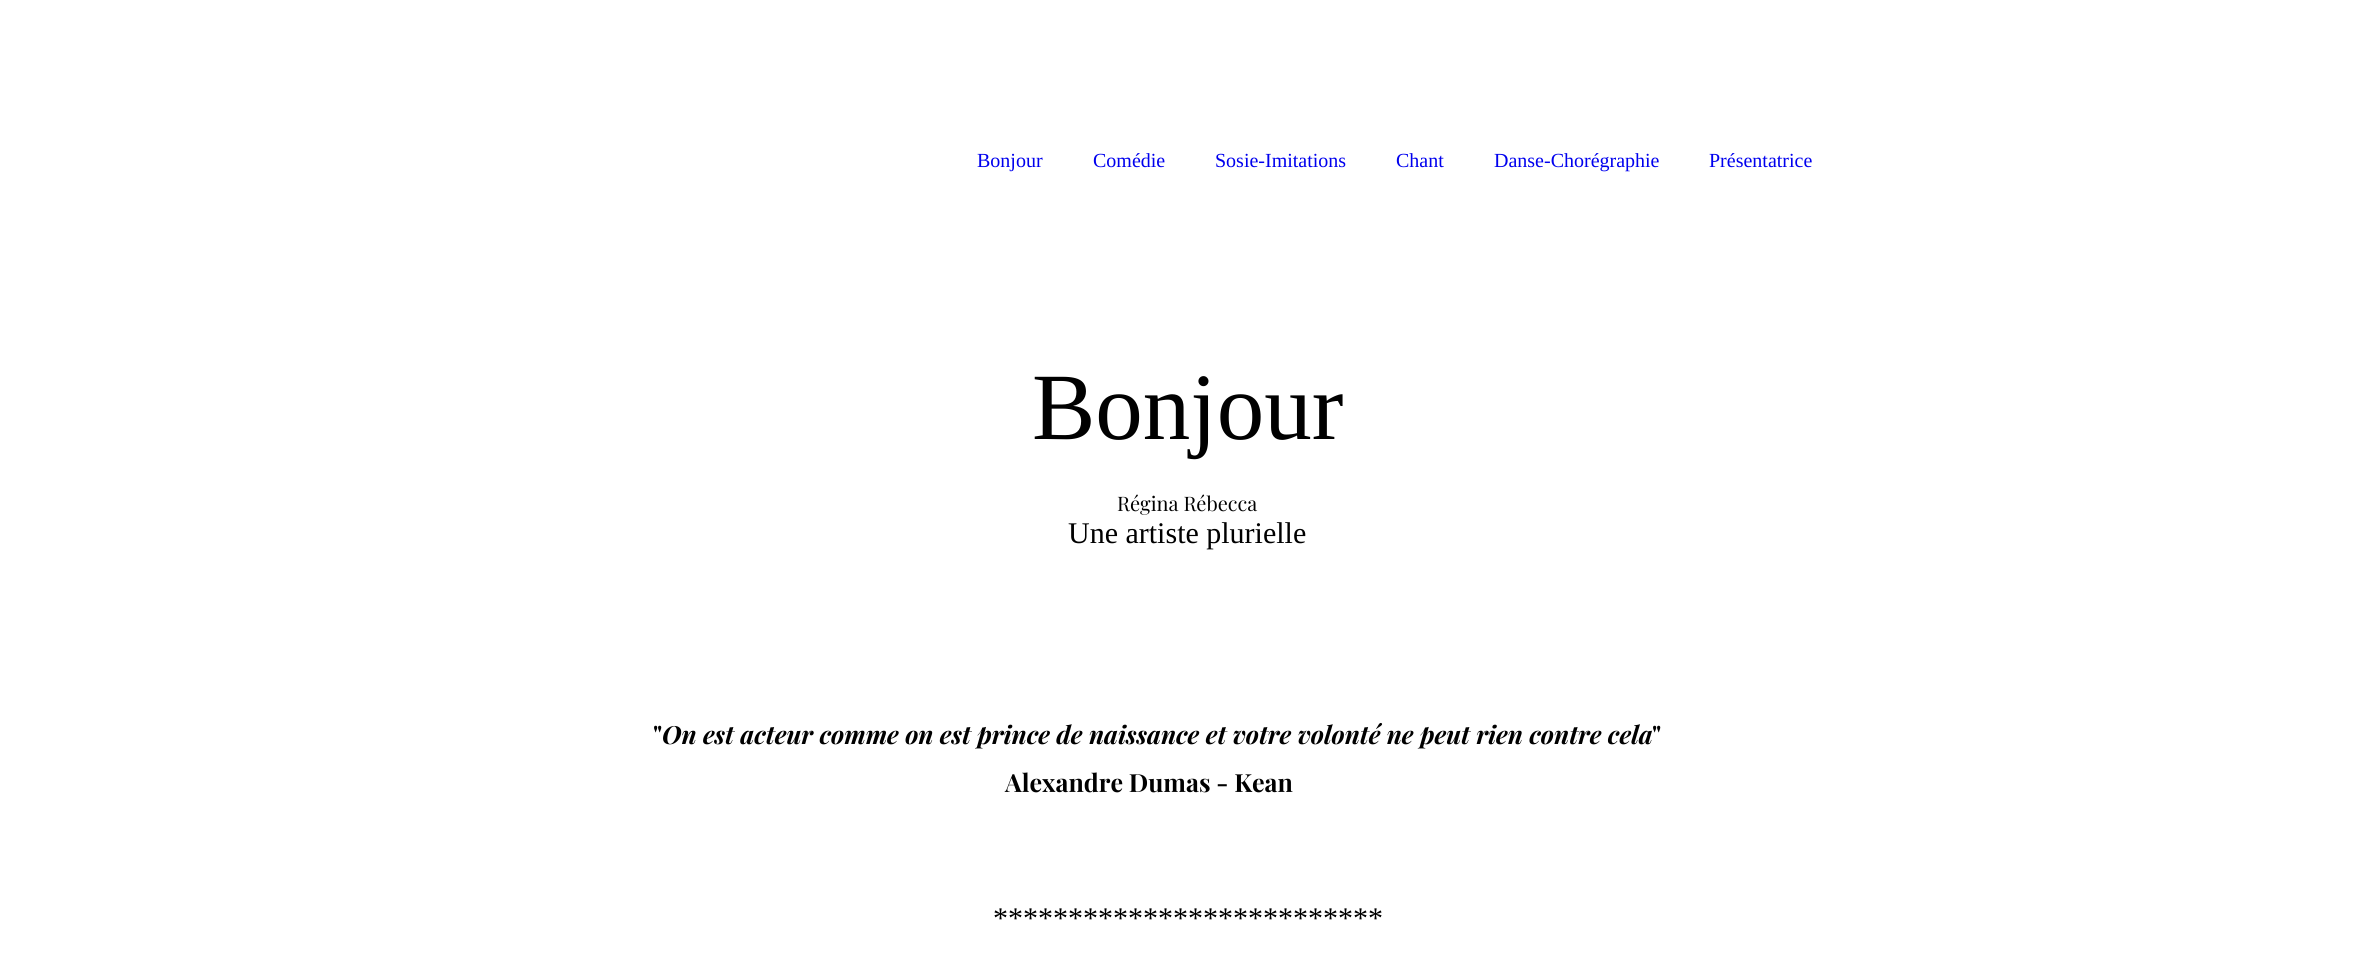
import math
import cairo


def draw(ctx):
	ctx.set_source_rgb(1, 1, 1)
	ctx.paint()
	ctx.select_font_face('Liberation Serif')
	ctx.set_font_size(20)
	ctx.set_source_rgb(0, 0, 0.933)
	for x, y, s in [
		(977, 167, 'Bonjour'),
		(1093, 167, 'Comédie'),
		(1215, 167, 'Sosie-Imitations'),
		(1396, 167, 'Chant'),
		(1494, 167, 'Danse-Chorégraphie'),
		(1709, 167, 'Présentatrice'),
	]:
		ctx.move_to(x, y)
		ctx.show_text(s)
	ctx.set_font_size(95)
	ctx.set_source_rgb(0, 0, 0)
	ctx.move_to(1032, 439)
	ctx.show_text('Bonjour')
	ctx.select_font_face('Playfair Display')
	ctx.set_font_size(20)
	ctx.move_to(1117, 511)
	ctx.show_text('Régina Rébecca')
	ctx.select_font_face('Liberation Serif')
	ctx.set_font_size(30)
	ctx.move_to(1068, 543)
	ctx.show_text('Une artiste plurielle')
	ctx.select_font_face('Playfair Display', cairo.FONT_SLANT_NORMAL, cairo.FONT_WEIGHT_BOLD)
	ctx.set_font_size(25)
	ctx.move_to(653, 744)
	ctx.show_text('"')
	ctx.select_font_face('Playfair Display', cairo.FONT_SLANT_ITALIC, cairo.FONT_WEIGHT_BOLD)
	ctx.move_to(662, 744)
	ctx.show_text('On est acteur comme on est prince de naissance et votre volonté ne peut rien contre cela')
	ctx.select_font_face('Playfair Display', cairo.FONT_SLANT_NORMAL, cairo.FONT_WEIGHT_BOLD)
	ctx.move_to(1652, 744)
	ctx.show_text('"')
	ctx.move_to(1005, 792)
	ctx.show_text('Alexandre Dumas - Kean')
	ctx.select_font_face('Liberation Serif')
	ctx.set_font_size(30)
	ctx.move_to(993, 928)
	ctx.show_text('**************************')


surface = cairo.ImageSurface(cairo.FORMAT_RGB24, 2374, 959)
ctx = cairo.Context(surface)
options = cairo.FontOptions()
options.set_hint_metrics(cairo.HINT_METRICS_OFF)
options.set_hint_style(cairo.HINT_STYLE_NONE)
ctx.set_font_options(options)
ctx.set_miter_limit(4)
draw(ctx)
surface.write_to_png('image.png')
